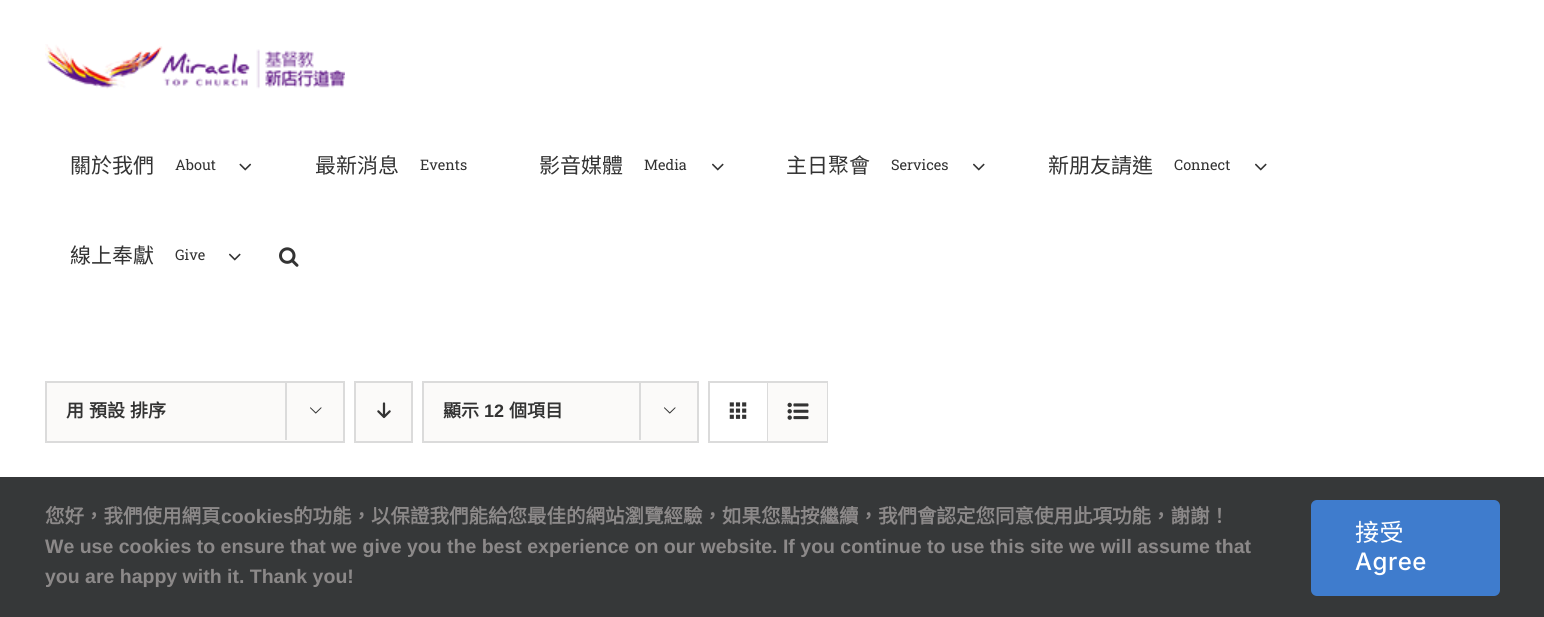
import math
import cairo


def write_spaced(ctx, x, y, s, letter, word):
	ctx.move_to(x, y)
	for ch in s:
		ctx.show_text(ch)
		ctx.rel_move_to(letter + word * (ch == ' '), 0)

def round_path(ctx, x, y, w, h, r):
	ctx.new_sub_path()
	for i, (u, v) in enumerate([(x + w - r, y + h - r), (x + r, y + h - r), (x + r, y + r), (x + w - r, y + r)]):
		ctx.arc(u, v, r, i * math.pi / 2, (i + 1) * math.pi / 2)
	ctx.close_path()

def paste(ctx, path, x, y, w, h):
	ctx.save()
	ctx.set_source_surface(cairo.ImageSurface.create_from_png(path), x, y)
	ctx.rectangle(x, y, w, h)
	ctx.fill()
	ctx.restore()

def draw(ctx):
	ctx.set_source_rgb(1, 1, 1)
	ctx.paint()
	paste(ctx, 'media/1.png', 45, 44, 300, 45)
	ctx.select_font_face('Noto Sans CJK TC')
	ctx.set_font_size(21)
	ctx.set_source_rgb(0.2, 0.2, 0.2)
	ctx.move_to(70, 173)
	ctx.show_text('關於我們')
	ctx.select_font_face('Roboto Slab')
	ctx.set_font_size(14.5)
	ctx.move_to(175, 170)
	ctx.show_text('About')
	paste(ctx, 'media/2.png', 239, 163, 13, 8)
	ctx.select_font_face('Noto Sans CJK TC')
	ctx.set_font_size(21)
	ctx.move_to(315, 173)
	ctx.show_text('最新消息')
	ctx.select_font_face('Roboto Slab')
	ctx.set_font_size(14.5)
	ctx.move_to(420, 170)
	ctx.show_text('Events')
	ctx.select_font_face('Noto Sans CJK TC')
	ctx.set_font_size(21)
	ctx.move_to(539, 173)
	ctx.show_text('影音媒體')
	ctx.select_font_face('Roboto Slab')
	ctx.set_font_size(14.5)
	ctx.move_to(644, 170)
	ctx.show_text('Media')
	paste(ctx, 'media/3.png', 712, 163, 12, 8)
	ctx.select_font_face('Noto Sans CJK TC')
	ctx.set_font_size(21)
	ctx.move_to(786, 173)
	ctx.show_text('主日聚會')
	ctx.select_font_face('Roboto Slab')
	ctx.set_font_size(14.5)
	ctx.move_to(891, 170)
	ctx.show_text('Services')
	paste(ctx, 'media/3.png', 973, 163, 12, 8)
	ctx.select_font_face('Noto Sans CJK TC')
	ctx.set_font_size(21)
	ctx.move_to(1048, 173)
	ctx.show_text('新朋友請進')
	ctx.select_font_face('Roboto Slab')
	ctx.set_font_size(14.5)
	ctx.move_to(1174, 170)
	ctx.show_text('Connect')
	paste(ctx, 'media/3.png', 1255, 163, 12, 8)
	ctx.select_font_face('Noto Sans CJK TC')
	ctx.set_font_size(21)
	ctx.move_to(70, 263)
	ctx.show_text('線上奉獻')
	ctx.select_font_face('Roboto Slab')
	ctx.set_font_size(14.5)
	ctx.move_to(175, 260)
	ctx.show_text('Give')
	paste(ctx, 'media/3.png', 229, 253, 12, 8)
	paste(ctx, 'media/4.png', 279, 247, 20, 20)
	ctx.set_source_rgb(0.984, 0.98, 0.976)
	ctx.rectangle(46, 382, 298, 60)
	ctx.fill_preserve()
	ctx.set_source_rgb(0.859, 0.859, 0.859)
	ctx.stroke()
	ctx.select_font_face('Noto Sans CJK TC', cairo.FONT_SLANT_NORMAL, cairo.FONT_WEIGHT_BOLD)
	ctx.set_font_size(18)
	ctx.set_source_rgb(0.2, 0.2, 0.2)
	for x, y, s in [
		(66, 417, '用'),
		(89, 417, '預設'),
		(130, 417, '排序'),
	]:
		ctx.move_to(x, y)
		ctx.show_text(s)
	ctx.set_source_rgb(0.859, 0.859, 0.859)
	ctx.rectangle(285, 381, 2, 59)
	ctx.fill()
	paste(ctx, 'media/5.png', 310, 407, 12, 7)
	ctx.set_source_rgb(0.984, 0.98, 0.976)
	ctx.rectangle(355, 382, 57, 60)
	ctx.fill_preserve()
	ctx.set_source_rgb(0.859, 0.859, 0.859)
	ctx.stroke()
	paste(ctx, 'media/6.png', 377, 402, 14, 17)
	ctx.set_source_rgb(0.984, 0.98, 0.976)
	ctx.rectangle(423, 382, 275, 60)
	ctx.fill_preserve()
	ctx.set_source_rgb(0.859, 0.859, 0.859)
	ctx.stroke()
	ctx.set_source_rgb(0.2, 0.2, 0.2)
	ctx.move_to(443, 417)
	ctx.show_text('顯示')
	ctx.select_font_face('Liberation Sans', cairo.FONT_SLANT_NORMAL, cairo.FONT_WEIGHT_BOLD)
	ctx.move_to(484, 417)
	ctx.show_text('12')
	ctx.select_font_face('Noto Sans CJK TC', cairo.FONT_SLANT_NORMAL, cairo.FONT_WEIGHT_BOLD)
	ctx.move_to(509, 417)
	ctx.show_text('個項目')
	ctx.set_source_rgb(0.859, 0.859, 0.859)
	ctx.rectangle(639, 381, 2, 59)
	ctx.fill()
	paste(ctx, 'media/5.png', 664, 407, 12, 7)
	ctx.rectangle(709, 382, 118, 60)
	ctx.stroke()
	ctx.rectangle(767, 383, 1, 58)
	ctx.fill()
	paste(ctx, 'media/7.png', 729, 402, 18, 17)
	ctx.set_source_rgb(0.984, 0.98, 0.976)
	ctx.rectangle(768, 383, 59, 58)
	ctx.fill()
	paste(ctx, 'media/8.png', 787, 402, 22, 18)
	ctx.set_source_rgb(0.212, 0.22, 0.224)
	ctx.rectangle(0, 477, 1544, 140)
	ctx.fill()
	ctx.set_font_size(19.5)
	ctx.set_source_rgb(0.549, 0.537, 0.537)
	ctx.move_to(45, 523)
	ctx.show_text('您好，我們使用網頁')
	ctx.select_font_face('Liberation Sans', cairo.FONT_SLANT_NORMAL, cairo.FONT_WEIGHT_BOLD)
	ctx.move_to(221, 523)
	ctx.show_text('cookies')
	ctx.select_font_face('Noto Sans CJK TC', cairo.FONT_SLANT_NORMAL, cairo.FONT_WEIGHT_BOLD)
	ctx.move_to(293, 523)
	ctx.show_text('的功能，以保證我們能給您最佳的網站瀏覽經驗，如果您點按繼續，我們會認定您同意使用此項功能，謝謝！')
	ctx.select_font_face('Liberation Sans', cairo.FONT_SLANT_NORMAL, cairo.FONT_WEIGHT_BOLD)
	ctx.move_to(45, 553)
	ctx.show_text('We use cookies to ensure that we give you the best experience on our website. If you continue to use this site we will assume that')
	ctx.move_to(45, 583)
	ctx.show_text('you are happy with it. Thank you!')
	ctx.set_source_rgb(0.247, 0.486, 0.804)
	round_path(ctx, 1311, 500, 189, 96, 6)
	ctx.fill()
	ctx.select_font_face('Noto Sans CJK TC')
	ctx.set_font_size(24)
	ctx.set_source_rgb(1, 1, 1)
	write_spaced(ctx, 1355, 541, '接受', 0.5, 0)
	ctx.select_font_face('Inter Medium')
	write_spaced(ctx, 1355, 570, 'Agree', 0.5, 0)


surface = cairo.ImageSurface(cairo.FORMAT_RGB24, 1544, 617)
ctx = cairo.Context(surface)
options = cairo.FontOptions()
options.set_hint_metrics(cairo.HINT_METRICS_OFF)
options.set_hint_style(cairo.HINT_STYLE_NONE)
ctx.set_font_options(options)
ctx.set_miter_limit(4)
draw(ctx)
surface.write_to_png('image.png')
